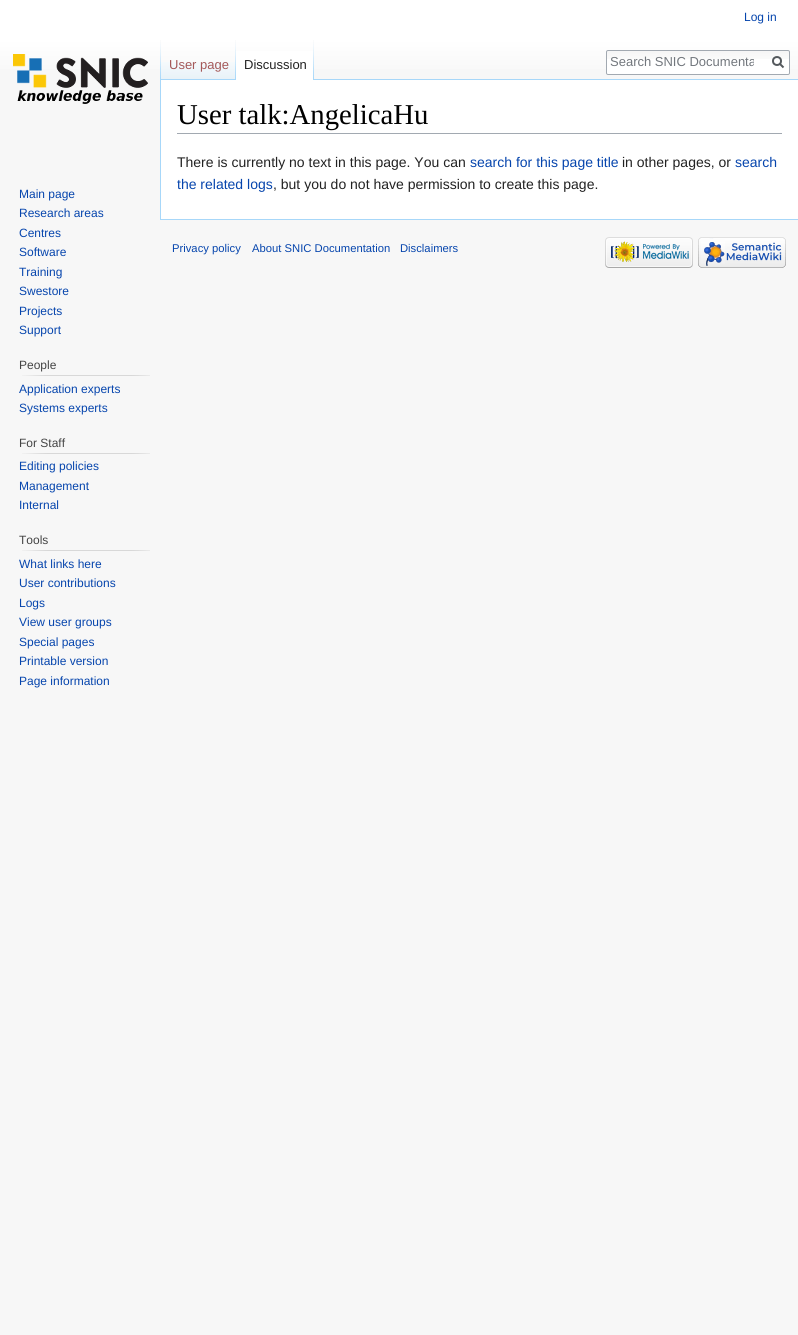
import math
import cairo


def round_path(ctx, x, y, w, h, r):
	ctx.new_sub_path()
	for i, (u, v) in enumerate([(x + w - r, y + h - r), (x + r, y + h - r), (x + r, y + r), (x + w - r, y + r)]):
		ctx.arc(u, v, r, i * math.pi / 2, (i + 1) * math.pi / 2)
	ctx.close_path()

def paste(ctx, path, x, y, w, h):
	ctx.save()
	ctx.set_source_surface(cairo.ImageSurface.create_from_png(path), x, y)
	ctx.rectangle(x, y, w, h)
	ctx.fill()
	ctx.restore()

def draw(ctx):
	ctx.set_source_rgb(0.965, 0.965, 0.965)
	ctx.paint()
	gradient = cairo.LinearGradient(399, 0, 399, 80)
	gradient.add_color_stop_rgba(0.5, 1, 1, 1, 1)
	gradient.add_color_stop_rgba(1, 0.965, 0.965, 0.965, 1)
	ctx.set_source(gradient)
	ctx.rectangle(0, 0, 798, 69)
	ctx.fill()
	ctx.select_font_face('Liberation Sans')
	ctx.set_font_size(12)
	ctx.set_source_rgb(0.024, 0.271, 0.678)
	ctx.move_to(744, 21)
	ctx.show_text('Log in')
	paste(ctx, 'media/1.png', 160, 40, 1, 39)
	paste(ctx, 'media/2.png', 161, 62, 74, 17)
	paste(ctx, 'media/1.png', 235, 40, 1, 39)
	ctx.set_font_size(13)
	ctx.set_source_rgb(0.647, 0.345, 0.345)
	ctx.move_to(169, 69)
	ctx.show_text('User page')
	ctx.set_source_rgb(0.655, 0.843, 0.976)
	ctx.rectangle(160, 79, 638, 1)
	ctx.fill()
	ctx.set_source_rgb(1, 1, 1)
	ctx.rectangle(236, 51, 77, 29)
	ctx.fill()
	paste(ctx, 'media/3.png', 313, 40, 1, 40)
	ctx.set_source_rgb(0.133, 0.133, 0.133)
	ctx.move_to(244, 69)
	ctx.show_text('Discussion')
	ctx.set_source_rgb(1, 1, 1)
	round_path(ctx, 606, 50, 184, 25, 2)
	ctx.fill()
	paste(ctx, 'media/4.png', 606, 51, 184, 8)
	round_path(ctx, 606.5, 50.5, 183, 24, 1.5)
	ctx.set_source_rgb(0.635, 0.663, 0.694)
	ctx.set_line_width(1)
	ctx.stroke()
	ctx.save()
	ctx.rectangle(610, 54, 144, 15)
	ctx.clip()
	ctx.set_source_rgb(0.447, 0.467, 0.49)
	ctx.move_to(610, 66)
	ctx.show_text('Search SNIC Documenta')
	ctx.restore()
	ctx.new_path()
	ctx.move_to(783.5, 67.5)
	ctx.line_to(779.5, 63.5)
	ctx.set_source_rgb(0.329, 0.349, 0.365)
	ctx.set_line_width(2)
	ctx.stroke()
	ctx.arc(777, 61, 4, 0, 2 * math.pi)
	ctx.stroke()
	paste(ctx, 'media/5.png', 13, 54, 135, 50)
	ctx.set_font_size(12)
	ctx.set_source_rgb(0.024, 0.271, 0.678)
	for x, y, s in [
		(19, 198, 'Main page'),
		(19, 217, 'Research areas'),
		(19, 237, 'Centres'),
		(19, 256, 'Software'),
		(19, 276, 'Training'),
		(19, 295, 'Swestore'),
		(19, 315, 'Projects'),
		(19, 334, 'Support'),
	]:
		ctx.move_to(x, y)
		ctx.show_text(s)
	ctx.set_source_rgb(0.267, 0.267, 0.267)
	ctx.move_to(19, 369)
	ctx.show_text('People')
	paste(ctx, 'media/6.png', 22, 375, 128, 1)
	ctx.set_source_rgb(0.024, 0.271, 0.678)
	ctx.move_to(19, 393)
	ctx.show_text('Application experts')
	ctx.move_to(19, 412)
	ctx.show_text('Systems experts')
	ctx.set_source_rgb(0.267, 0.267, 0.267)
	ctx.move_to(19, 447)
	ctx.show_text('For Staff')
	paste(ctx, 'media/6.png', 22, 453, 128, 1)
	ctx.set_source_rgb(0.024, 0.271, 0.678)
	for x, y, s in [
		(19, 470, 'Editing policies'),
		(19, 490, 'Management'),
		(19, 509, 'Internal'),
	]:
		ctx.move_to(x, y)
		ctx.show_text(s)
	ctx.set_source_rgb(0.267, 0.267, 0.267)
	ctx.move_to(19, 544)
	ctx.show_text('Tools')
	paste(ctx, 'media/6.png', 22, 550, 128, 1)
	ctx.set_source_rgb(0.024, 0.271, 0.678)
	for x, y, s in [
		(19, 568, 'What links here'),
		(19, 587, 'User contributions'),
		(19, 607, 'Logs'),
		(19, 626, 'View user groups'),
		(19, 646, 'Special pages'),
		(19, 665, 'Printable version'),
		(19, 685, 'Page information'),
	]:
		ctx.move_to(x, y)
		ctx.show_text(s)
	ctx.set_source_rgb(1, 1, 1)
	ctx.rectangle(161, 80, 637, 139)
	ctx.fill()
	ctx.set_source_rgb(0.655, 0.843, 0.976)
	ctx.rectangle(160, 219, 638, 1)
	ctx.rectangle(160, 79, 1, 141)
	ctx.fill()
	ctx.set_source_rgb(0.635, 0.663, 0.694)
	ctx.rectangle(177, 133, 605, 1)
	ctx.fill()
	ctx.select_font_face('Liberation Serif')
	ctx.set_font_size(28.75)
	ctx.set_source_rgb(0, 0, 0)
	ctx.move_to(177, 124)
	ctx.show_text('User talk:AngelicaHu')
	ctx.select_font_face('Liberation Sans')
	ctx.set_font_size(14)
	ctx.set_source_rgb(0.133, 0.133, 0.133)
	ctx.move_to(177, 167)
	ctx.show_text('There is currently no text in this page. You can')
	ctx.set_source_rgb(0.024, 0.271, 0.678)
	ctx.move_to(470, 167)
	ctx.show_text('search for this page title')
	ctx.set_source_rgb(0.133, 0.133, 0.133)
	ctx.move_to(622, 167)
	ctx.show_text('in other pages, or')
	ctx.set_source_rgb(0.024, 0.271, 0.678)
	ctx.move_to(735, 167)
	ctx.show_text('search')
	ctx.move_to(177, 189)
	ctx.show_text('the related logs')
	ctx.set_source_rgb(0.133, 0.133, 0.133)
	ctx.move_to(273, 189)
	ctx.show_text(', but you do not have permission to create this page.')
	ctx.set_font_size(11.25)
	ctx.set_source_rgb(0.024, 0.271, 0.678)
	for x, y, s in [
		(172, 252, 'Privacy policy'),
		(252, 252, 'About SNIC Documentation'),
		(400, 252, 'Disclaimers'),
	]:
		ctx.move_to(x, y)
		ctx.show_text(s)
	paste(ctx, 'media/7.png', 605, 237, 88, 31)
	paste(ctx, 'media/8.png', 698, 237, 88, 31)


surface = cairo.ImageSurface(cairo.FORMAT_RGB24, 798, 1335)
ctx = cairo.Context(surface)
options = cairo.FontOptions()
options.set_hint_metrics(cairo.HINT_METRICS_OFF)
options.set_hint_style(cairo.HINT_STYLE_NONE)
ctx.set_font_options(options)
ctx.set_miter_limit(4)
draw(ctx)
surface.write_to_png('image.png')
